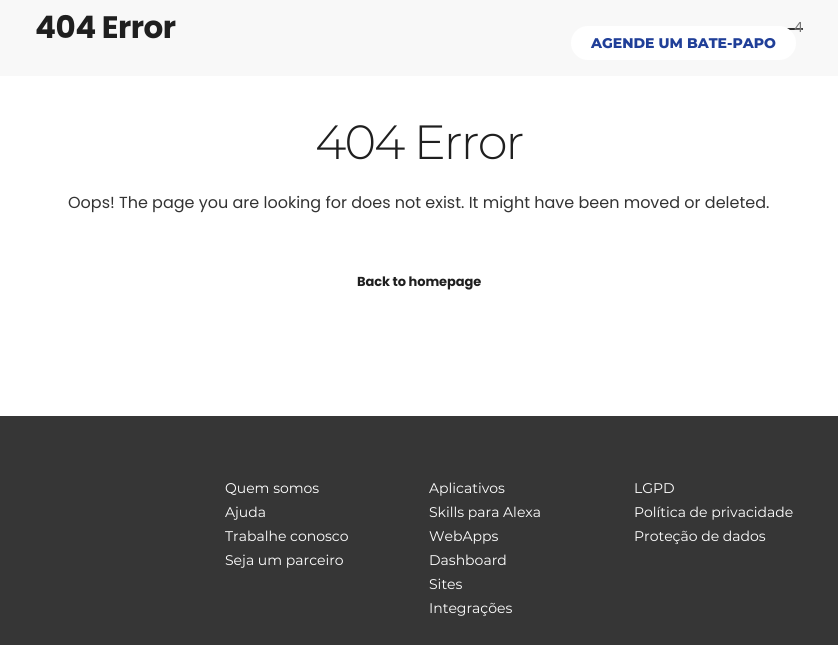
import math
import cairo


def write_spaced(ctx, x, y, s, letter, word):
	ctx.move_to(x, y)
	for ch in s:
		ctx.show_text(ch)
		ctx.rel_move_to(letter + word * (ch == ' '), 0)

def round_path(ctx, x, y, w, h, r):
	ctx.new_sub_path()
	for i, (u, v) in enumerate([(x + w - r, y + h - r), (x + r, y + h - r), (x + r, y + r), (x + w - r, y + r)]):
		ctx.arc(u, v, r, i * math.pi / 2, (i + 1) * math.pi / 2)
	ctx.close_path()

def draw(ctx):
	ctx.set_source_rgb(1, 1, 1)
	ctx.paint()
	ctx.set_source_rgb(0.969, 0.969, 0.969)
	ctx.rectangle(0, 0, 838, 76)
	ctx.fill()
	ctx.select_font_face('Poppins', cairo.FONT_SLANT_NORMAL, cairo.FONT_WEIGHT_BOLD)
	ctx.set_font_size(31)
	ctx.set_source_rgb(0.122, 0.122, 0.122)
	write_spaced(ctx, 35, 38, '404 Error', -0.5, 0)
	ctx.set_source_rgb(0.188, 0.188, 0.188)
	ctx.rectangle(781, 28, 22, 2)
	ctx.fill()
	ctx.select_font_face('Poppins')
	ctx.set_font_size(14)
	ctx.set_source_rgb(0.467, 0.467, 0.467)
	ctx.move_to(794, 32)
	ctx.show_text('4')
	ctx.set_source_rgb(1, 1, 1)
	round_path(ctx, 571, 26, 225, 34, 17)
	ctx.fill()
	ctx.select_font_face('Montserrat ExtraBold')
	ctx.set_source_rgb(0.125, 0.247, 0.596)
	ctx.move_to(591, 48)
	ctx.show_text('AGENDE UM BATE-PAPO')
	ctx.select_font_face('Montserrat Light')
	ctx.set_font_size(48)
	ctx.set_source_rgb(0.122, 0.122, 0.122)
	write_spaced(ctx, 315, 159, '404 Error', -2, 0)
	ctx.select_font_face('Poppins')
	ctx.set_font_size(16)
	ctx.set_source_rgb(0.2, 0.2, 0.2)
	ctx.move_to(68, 208)
	ctx.show_text('Oops! The page you are looking for does not exist. It might have been moved or deleted.')
	ctx.select_font_face('Poppins', cairo.FONT_SLANT_NORMAL, cairo.FONT_WEIGHT_BOLD)
	ctx.set_font_size(13)
	ctx.set_source_rgb(0.122, 0.122, 0.122)
	write_spaced(ctx, 357, 286, 'Back to homepage', -0.1, 0)
	ctx.set_source_rgb(0.212, 0.212, 0.212)
	ctx.rectangle(0, 416, 838, 229)
	ctx.fill()
	ctx.select_font_face('Montserrat')
	ctx.set_font_size(14)
	ctx.set_source_rgb(1, 1, 1)
	for x, y, s in [
		(225, 493, 'Quem somos'),
		(225, 517, 'Ajuda'),
		(225, 541, 'Trabalhe conosco'),
		(225, 565, 'Seja um parceiro'),
		(429, 493, 'Aplicativos'),
		(429, 517, 'Skills para Alexa'),
		(429, 541, 'WebApps'),
		(429, 565, 'Dashboard'),
		(429, 589, 'Sites'),
		(429, 613, 'Integrações'),
		(634, 493, 'LGPD'),
		(634, 517, 'Política de privacidade'),
		(634, 541, 'Proteção de dados'),
	]:
		ctx.move_to(x, y)
		ctx.show_text(s)


surface = cairo.ImageSurface(cairo.FORMAT_RGB24, 838, 645)
ctx = cairo.Context(surface)
options = cairo.FontOptions()
options.set_hint_metrics(cairo.HINT_METRICS_OFF)
options.set_hint_style(cairo.HINT_STYLE_NONE)
ctx.set_font_options(options)
ctx.set_miter_limit(4)
draw(ctx)
surface.write_to_png('image.png')
